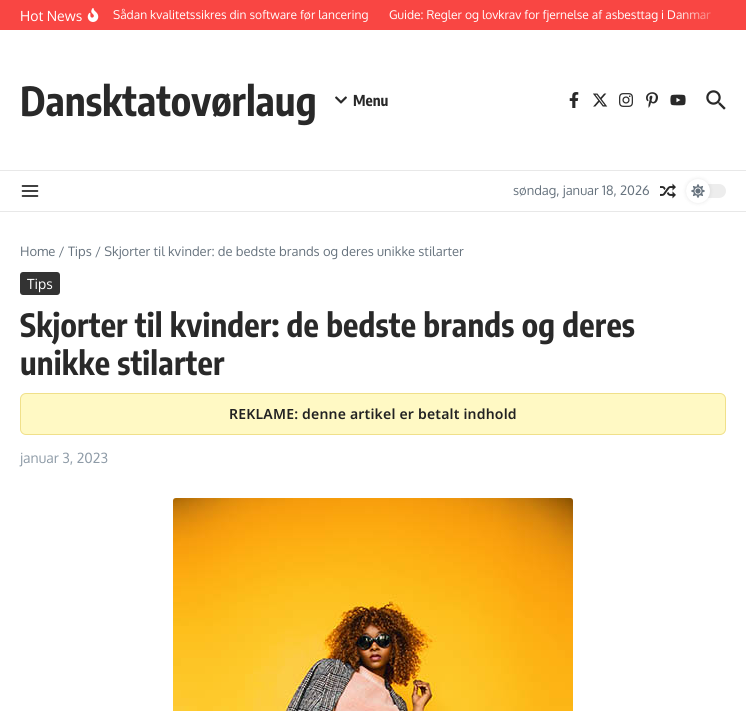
import math
import cairo


def write_spaced(ctx, x, y, s, letter, word):
	ctx.move_to(x, y)
	for ch in s:
		ctx.show_text(ch)
		ctx.rel_move_to(letter + word * (ch == ' '), 0)

def round_path(ctx, x, y, w, h, r):
	ctx.new_sub_path()
	for i, (u, v) in enumerate([(x + w - r, y + h - r), (x + r, y + h - r), (x + r, y + r), (x + w - r, y + r)]):
		ctx.arc(u, v, r, i * math.pi / 2, (i + 1) * math.pi / 2)
	ctx.close_path()

def blur_box(ctx, x, y, w, h, r, blur, alpha):
	ctx.push_group_with_content(cairo.CONTENT_ALPHA)
	ctx.set_operator(cairo.OPERATOR_SOURCE)
	for i in range(15, -16, -2):
		e = blur * i / 6
		if min(w, h) + 2 * e > 0:
			ctx.set_source_rgba(0, 0, 0, alpha * math.erfc((i - 1) / 8.5) / 2)
			round_path(ctx, x - e, y - e, w + 2 * e, h + 2 * e, max(0, min(r + e + blur * .6, min(w, h) / 2 + e)))
			ctx.fill()
	ctx.mask(ctx.pop_group())

def paste(ctx, path, x, y, w, h):
	ctx.save()
	ctx.set_source_surface(cairo.ImageSurface.create_from_png(path), x, y)
	ctx.rectangle(x, y, w, h)
	ctx.fill()
	ctx.restore()

def draw(ctx):
	ctx.set_source_rgb(1, 1, 1)
	ctx.paint()
	ctx.set_source_rgb(0.973, 0.275, 0.263)
	ctx.rectangle(0, 0, 746, 30)
	ctx.fill()
	ctx.select_font_face('Oxygen')
	ctx.set_font_size(14)
	ctx.set_source_rgb(1, 1, 1)
	ctx.move_to(20, 21)
	ctx.show_text('Hot News')
	paste(ctx, 'media/1.png', 87, 8, 12, 14)
	ctx.set_font_size(12)
	ctx.move_to(113, 19)
	ctx.show_text('Sådan kvalitetssikres din software før lancering')
	ctx.move_to(389, 19)
	ctx.show_text('Guide: Regler og lovkrav for fjernelse af asbesttag i Danmar')
	gradient = cairo.LinearGradient(676, 15, 726, 15)
	gradient.add_color_stop_rgba(0, 0.973, 0.275, 0.263, 0)
	gradient.add_color_stop_rgba(1, 0.973, 0.275, 0.263, 1)
	ctx.set_source(gradient)
	ctx.rectangle(677, 12, 33, 8)
	ctx.fill()
	ctx.set_source_rgb(0.91, 0.91, 0.91)
	ctx.rectangle(0, 170, 746, 1)
	ctx.fill()
	ctx.select_font_face('Encode Sans Condensed', cairo.FONT_SLANT_NORMAL, cairo.FONT_WEIGHT_BOLD)
	ctx.set_font_size(40)
	ctx.set_source_rgb(0.161, 0.161, 0.161)
	ctx.move_to(20, 116)
	ctx.show_text('Dansktatovørlaug')
	paste(ctx, 'media/2.png', 335, 96, 12, 8)
	ctx.set_font_size(15)
	ctx.move_to(353, 106)
	ctx.show_text('Menu')
	paste(ctx, 'media/3.png', 569, 92, 10, 16)
	paste(ctx, 'media/4.png', 593, 93, 15, 14)
	paste(ctx, 'media/5.png', 619, 93, 14, 14)
	paste(ctx, 'media/6.png', 646, 92, 12, 16)
	paste(ctx, 'media/7.png', 670, 94, 16, 12)
	paste(ctx, 'media/8.png', 706, 90, 20, 20)
	ctx.set_source_rgb(0.91, 0.91, 0.91)
	ctx.rectangle(0, 211, 746, 1)
	ctx.fill()
	paste(ctx, 'media/9.png', 21, 185, 18, 12)
	ctx.select_font_face('Oxygen')
	ctx.set_font_size(13)
	ctx.set_source_rgb(0.404, 0.451, 0.494)
	ctx.move_to(513, 195)
	ctx.show_text('søndag, januar 18, 2026')
	paste(ctx, 'media/10.png', 660, 183, 16, 16)
	ctx.set_source_rgb(0.929, 0.929, 0.929)
	round_path(ctx, 686, 184, 40, 14, 7)
	ctx.fill()
	ctx.set_source_rgb(0, 0, 0)
	blur_box(ctx, 686, 179, 24, 24, 12, 2, 0.1)
	ctx.set_source_rgb(1, 1, 1)
	ctx.arc(698, 191, 12, 0, 2 * math.pi)
	ctx.fill()
	paste(ctx, 'media/11.png', 691, 184, 14, 14)
	ctx.set_source_rgb(0.404, 0.451, 0.494)
	ctx.move_to(20, 256)
	ctx.show_text('Home / Tips / Skjorter til kvinder: de bedste brands og deres unikke stilarter')
	ctx.set_source_rgb(0.2, 0.2, 0.2)
	round_path(ctx, 20, 272, 40, 23, 3)
	ctx.fill()
	ctx.set_font_size(14)
	ctx.set_source_rgb(1, 1, 1)
	ctx.move_to(27, 289)
	ctx.show_text('Tips')
	ctx.select_font_face('Encode Sans Condensed', cairo.FONT_SLANT_NORMAL, cairo.FONT_WEIGHT_BOLD)
	ctx.set_font_size(32)
	ctx.set_source_rgb(0.161, 0.161, 0.161)
	write_spaced(ctx, 20, 337, 'Skjorter til kvinder: de bedste brands og deres', 0.2, 0)
	write_spaced(ctx, 20, 375, 'unikke stilarter', 0.2, 0)
	ctx.set_source_rgb(1, 0.976, 0.769)
	round_path(ctx, 20.5, 393.5, 705, 41, 5.5)
	ctx.fill_preserve()
	ctx.set_source_rgb(0.941, 0.878, 0.541)
	ctx.set_line_width(1)
	ctx.stroke()
	ctx.select_font_face('Noto Sans SemiBold')
	ctx.set_font_size(14)
	ctx.set_source_rgb(0.133, 0.133, 0.133)
	write_spaced(ctx, 229, 419, 'REKLAME: denne artikel er betalt indhold', 0.2, 0)
	ctx.select_font_face('Oxygen')
	ctx.set_source_rgb(0.557, 0.608, 0.655)
	ctx.move_to(20, 463)
	ctx.show_text('januar 3, 2023')
	paste(ctx, 'media/12.png', 173, 498, 400, 213)


surface = cairo.ImageSurface(cairo.FORMAT_RGB24, 746, 711)
ctx = cairo.Context(surface)
options = cairo.FontOptions()
options.set_hint_metrics(cairo.HINT_METRICS_OFF)
options.set_hint_style(cairo.HINT_STYLE_NONE)
ctx.set_font_options(options)
ctx.set_miter_limit(4)
draw(ctx)
surface.write_to_png('image.png')
